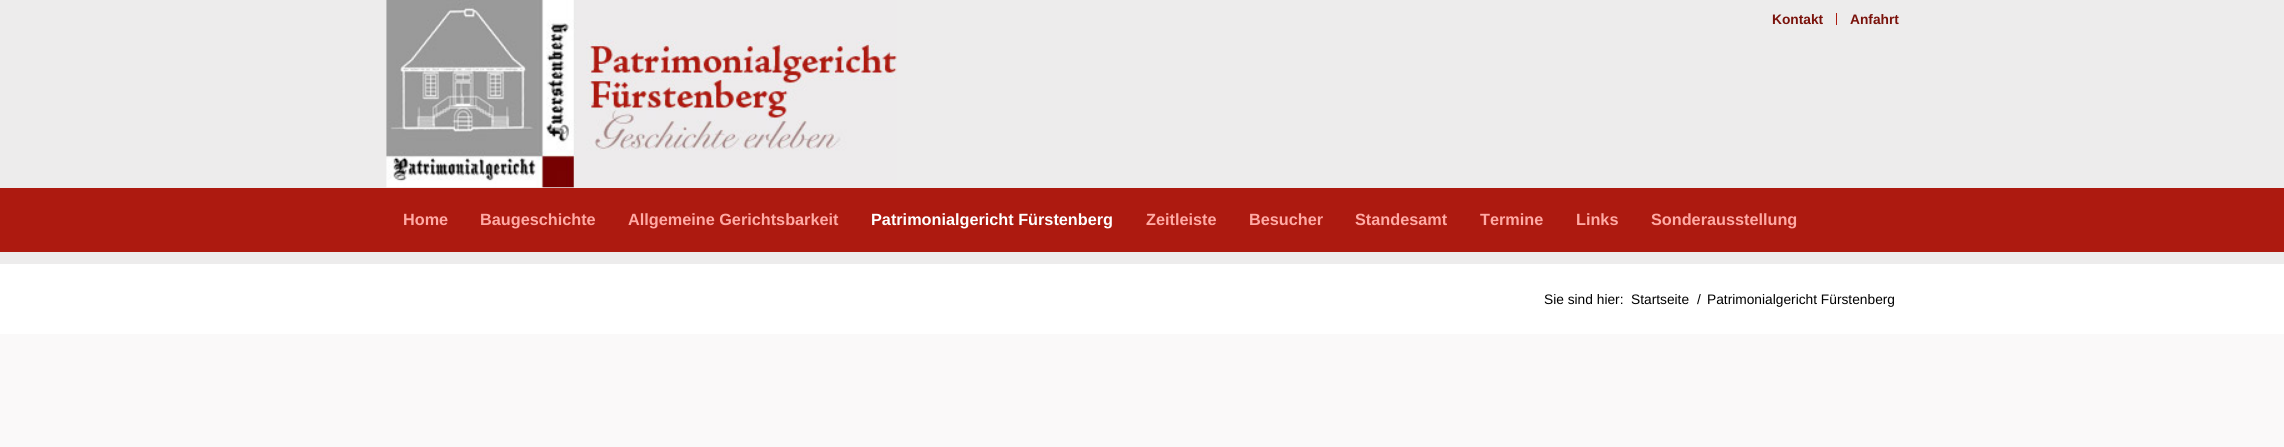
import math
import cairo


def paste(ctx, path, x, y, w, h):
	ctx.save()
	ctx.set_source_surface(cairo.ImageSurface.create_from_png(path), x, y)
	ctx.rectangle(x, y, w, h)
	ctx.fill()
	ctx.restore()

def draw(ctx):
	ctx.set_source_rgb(0.929, 0.922, 0.925)
	ctx.paint()
	ctx.set_source_rgb(0.678, 0.106, 0.063)
	ctx.rectangle(1836, 13, 1, 12)
	ctx.fill()
	ctx.select_font_face('Liberation Sans', cairo.FONT_SLANT_NORMAL, cairo.FONT_WEIGHT_BOLD)
	ctx.set_font_size(13.75)
	ctx.set_source_rgb(0.478, 0.071, 0.043)
	ctx.move_to(1772, 24)
	ctx.show_text('Kontakt')
	ctx.move_to(1850, 24)
	ctx.show_text('Anfahrt')
	ctx.set_source_rgb(0.678, 0.106, 0.063)
	ctx.rectangle(0, 251, 2284, 1)
	ctx.fill()
	paste(ctx, 'media/1.png', 386, 0, 511, 188)
	ctx.set_source_rgb(0.678, 0.102, 0.063)
	ctx.rectangle(0, 188, 2284, 63)
	ctx.fill()
	ctx.set_font_size(16.25)
	ctx.set_source_rgb(1, 0.667, 0.643)
	for x, y, s in [
		(403, 225, 'Home'),
		(480, 225, 'Baugeschichte'),
		(628, 225, 'Allgemeine Gerichtsbarkeit'),
	]:
		ctx.move_to(x, y)
		ctx.show_text(s)
	ctx.set_source_rgb(1, 1, 1)
	ctx.move_to(871, 225)
	ctx.show_text('Patrimonialgericht Fürstenberg')
	ctx.set_source_rgb(1, 0.667, 0.643)
	for x, y, s in [
		(1146, 225, 'Zeitleiste'),
		(1249, 225, 'Besucher'),
		(1355, 225, 'Standesamt'),
		(1480, 225, 'Termine'),
		(1576, 225, 'Links'),
		(1651, 225, 'Sonderausstellung'),
	]:
		ctx.move_to(x, y)
		ctx.show_text(s)
	ctx.set_source_rgb(1, 1, 1)
	ctx.rectangle(0, 264, 2284, 70)
	ctx.fill()
	ctx.select_font_face('Liberation Sans')
	ctx.set_font_size(13.75)
	ctx.set_source_rgb(0, 0, 0)
	for x, y, s in [
		(1544, 304, 'Sie sind hier:'),
		(1631, 304, 'Startseite'),
		(1697, 304, '/'),
		(1707, 304, 'Patrimonialgericht Fürstenberg'),
	]:
		ctx.move_to(x, y)
		ctx.show_text(s)
	ctx.set_source_rgb(0.98, 0.973, 0.976)
	ctx.rectangle(0, 334, 2284, 113)
	ctx.fill()


surface = cairo.ImageSurface(cairo.FORMAT_RGB24, 2284, 447)
ctx = cairo.Context(surface)
options = cairo.FontOptions()
options.set_hint_metrics(cairo.HINT_METRICS_OFF)
options.set_hint_style(cairo.HINT_STYLE_NONE)
ctx.set_font_options(options)
ctx.set_miter_limit(4)
draw(ctx)
surface.write_to_png('image.png')
